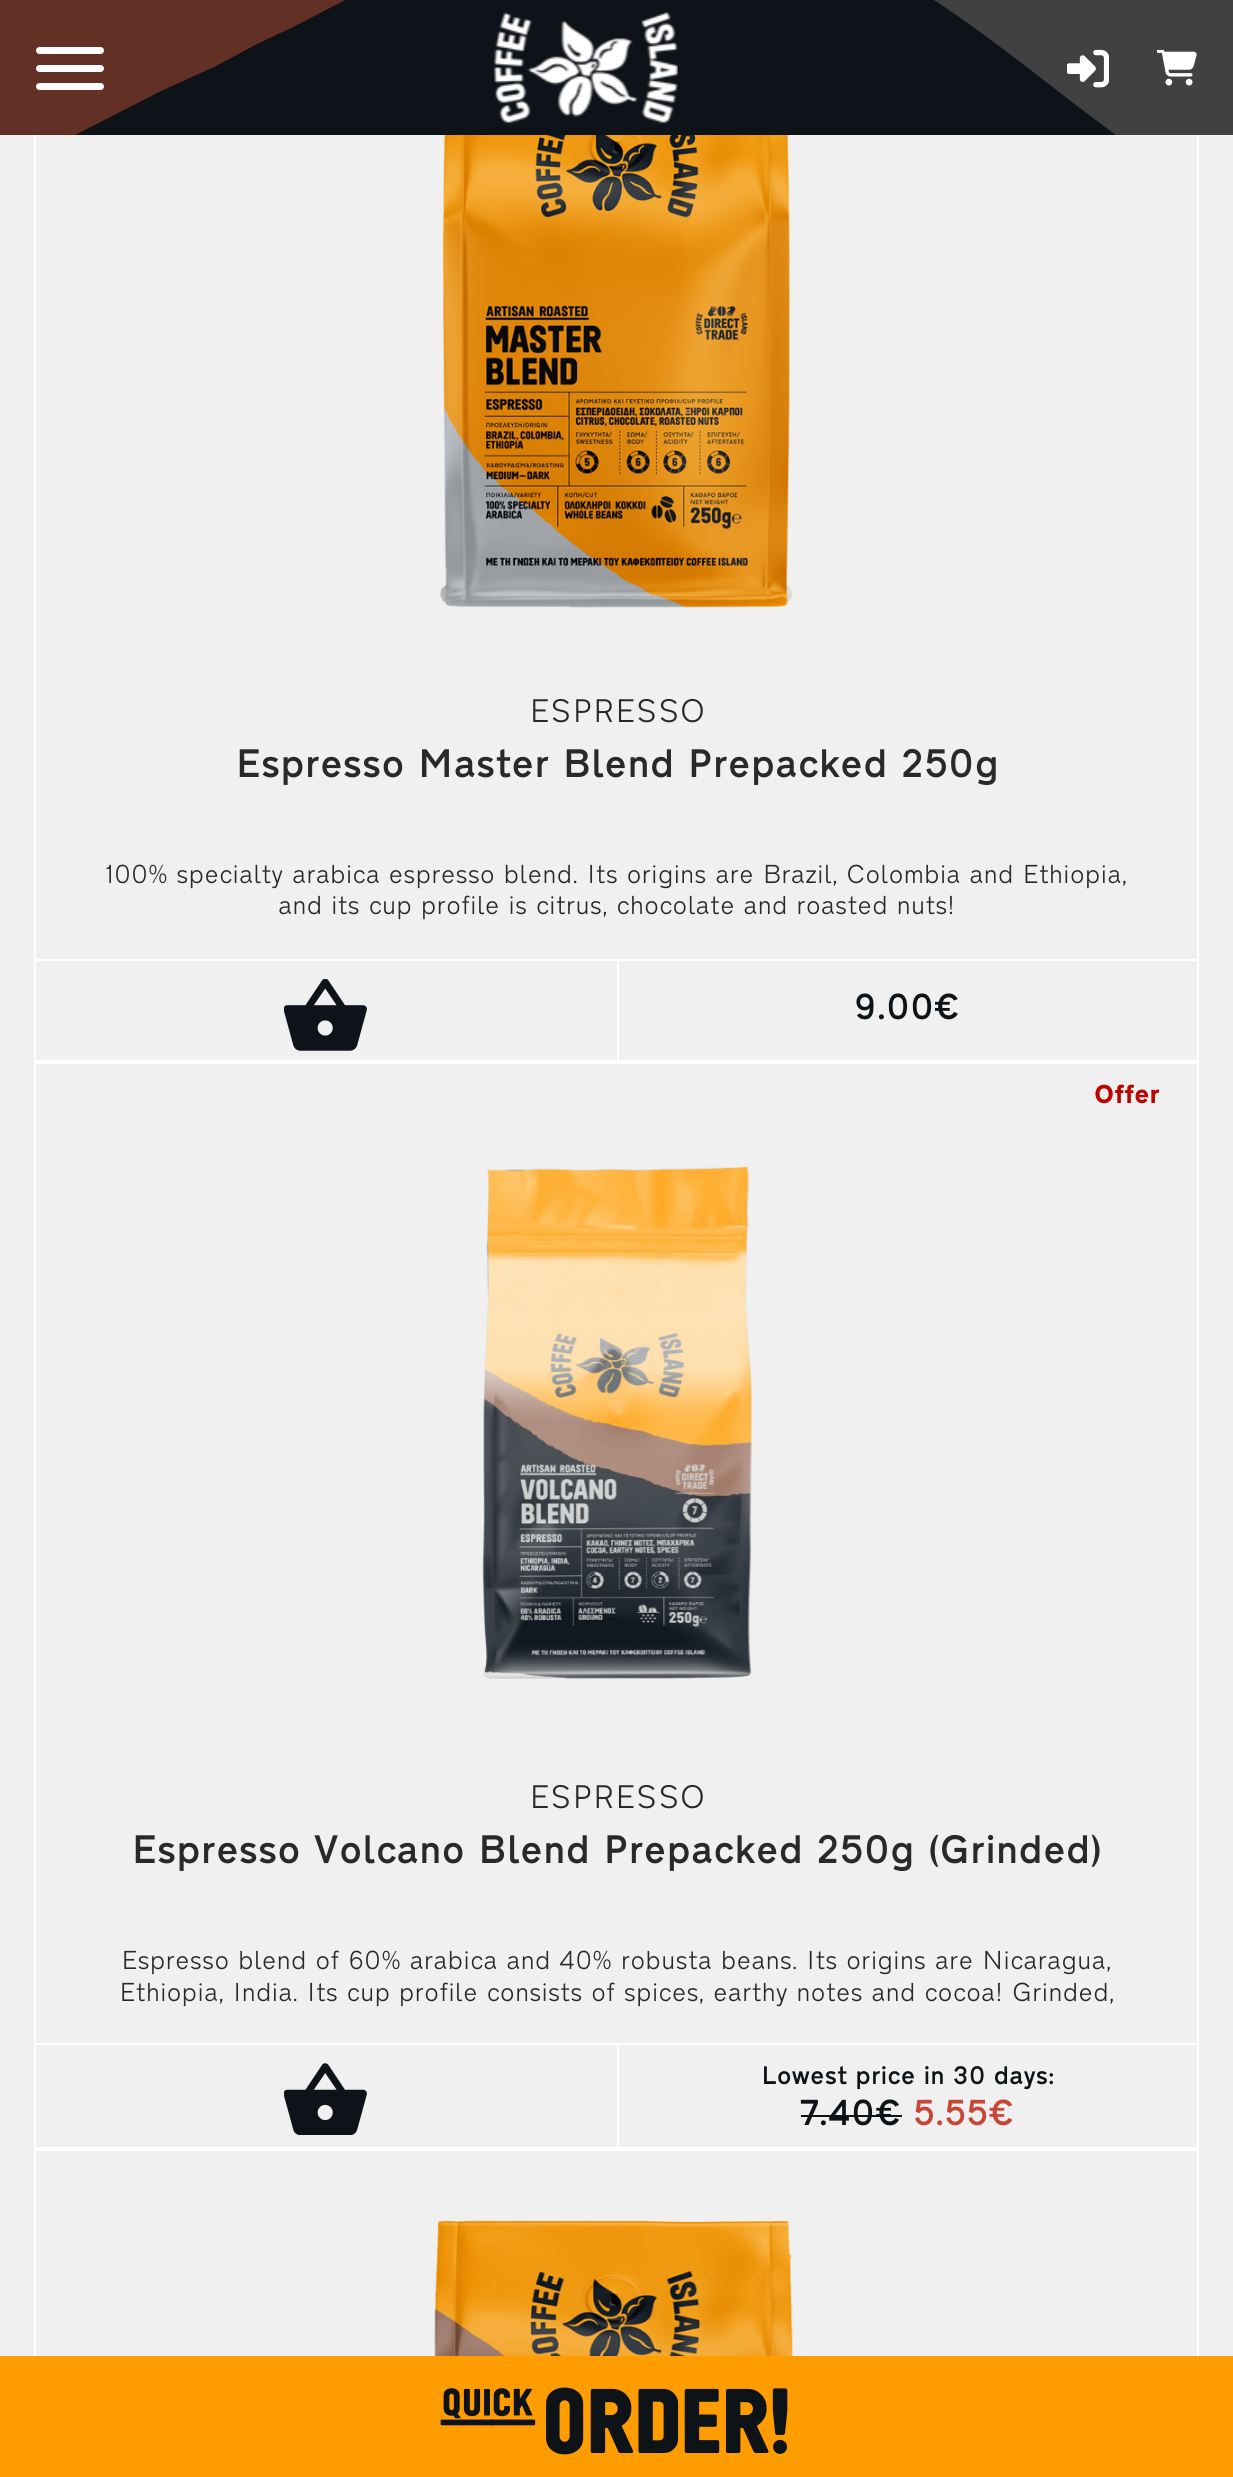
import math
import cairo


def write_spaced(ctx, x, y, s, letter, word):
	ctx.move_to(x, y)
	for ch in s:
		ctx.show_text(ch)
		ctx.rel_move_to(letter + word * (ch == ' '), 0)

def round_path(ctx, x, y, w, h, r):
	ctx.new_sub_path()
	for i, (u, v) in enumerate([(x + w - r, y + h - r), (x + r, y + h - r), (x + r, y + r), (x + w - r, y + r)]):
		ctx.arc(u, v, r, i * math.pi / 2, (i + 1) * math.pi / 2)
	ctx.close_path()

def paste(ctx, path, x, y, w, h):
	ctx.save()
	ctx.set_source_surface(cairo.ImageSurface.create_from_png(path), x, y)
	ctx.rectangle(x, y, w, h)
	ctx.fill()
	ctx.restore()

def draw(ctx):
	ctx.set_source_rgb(0.941, 0.941, 0.941)
	ctx.paint()
	ctx.rectangle(35, -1, 1163, 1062)
	ctx.set_source_rgb(1, 1, 1)
	ctx.stroke()
	ctx.set_source_rgb(0.055, 0.075, 0.098)
	ctx.rectangle(75, 0, 1041, 135)
	ctx.fill()
	ctx.set_source_rgb(0.388, 0.188, 0.145)
	ctx.new_path()
	ctx.move_to(75, 135)
	ctx.line_to(-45, 135)
	ctx.line_to(-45, 0)
	ctx.line_to(345, 0)
	ctx.line_to(295, 26)
	ctx.line_to(257, 44)
	ctx.line_to(216, 66)
	ctx.line_to(161, 91)
	ctx.close_path()
	ctx.fill()
	ctx.set_source_rgb(0.255, 0.255, 0.255)
	ctx.new_path()
	ctx.move_to(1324, 0)
	ctx.line_to(934, 0)
	ctx.curve_to(1001, 44, 1058, 93, 1116, 135)
	ctx.line_to(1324, 135)
	ctx.close_path()
	ctx.fill()
	ctx.set_source_rgb(1, 1, 1)
	round_path(ctx, 36, 65, 68, 7, 3.5)
	ctx.fill()
	round_path(ctx, 36, 47, 68, 7, 3.5)
	ctx.fill()
	round_path(ctx, 36, 83, 68, 7, 3.5)
	ctx.fill()
	paste(ctx, 'media/1.png', 494, 12, 184, 112)
	paste(ctx, 'media/2.png', 1067, 49, 42, 39)
	paste(ctx, 'media/3.png', 1157, 50, 40, 36)
	paste(ctx, 'media/4.png', 440, 135, 353, 473)
	ctx.select_font_face('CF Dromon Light')
	ctx.set_font_size(32.5)
	ctx.set_source_rgb(0.161, 0.161, 0.161)
	ctx.move_to(529, 722)
	ctx.show_text('ESPRESSO')
	ctx.select_font_face('CF Dromon Medium')
	ctx.set_font_size(39.6)
	ctx.move_to(235, 777)
	ctx.show_text('Espresso Master Blend Prepacked 250g')
	ctx.select_font_face('CF Dromon Light')
	ctx.set_font_size(25.9)
	ctx.move_to(105, 883)
	ctx.show_text('100% specialty arabica espresso blend. Its origins are Brazil, Colombia and Ethiopia,')
	ctx.move_to(278, 914)
	ctx.show_text('and its cup profile is citrus, chocolate and roasted nuts!')
	ctx.set_source_rgb(1, 1, 1)
	ctx.rectangle(36, 959, 1161, 2)
	ctx.fill()
	ctx.rectangle(617, 961, 2, 99)
	ctx.fill()
	paste(ctx, 'media/5.png', 284, 979, 83, 72)
	ctx.select_font_face('CF Dromon Medium')
	ctx.set_font_size(36)
	ctx.set_source_rgb(0.055, 0.075, 0.09)
	ctx.move_to(854, 1019)
	ctx.show_text('9.00€')
	ctx.rectangle(35, 1063, 1163, 1085)
	ctx.set_source_rgb(1, 1, 1)
	ctx.stroke()
	ctx.select_font_face('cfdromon', cairo.FONT_SLANT_NORMAL, cairo.FONT_WEIGHT_BOLD)
	ctx.set_font_size(25.9)
	ctx.set_source_rgb(0.741, 0.012, 0)
	ctx.move_to(1094, 1103)
	ctx.show_text('Offer')
	paste(ctx, 'media/6.png', 482, 1166, 271, 513)
	ctx.select_font_face('CF Dromon Light')
	ctx.set_font_size(32.5)
	ctx.set_source_rgb(0.161, 0.161, 0.161)
	ctx.move_to(529, 1808)
	ctx.show_text('ESPRESSO')
	ctx.select_font_face('CF Dromon Medium')
	ctx.set_font_size(39.6)
	ctx.move_to(131, 1863)
	ctx.show_text('Espresso Volcano Blend Prepacked 250g (Grinded)')
	ctx.select_font_face('CF Dromon Light')
	ctx.set_font_size(25.9)
	for x, y, s in [
		(121, 1969, 'Espresso blend of 60% arabica and 40% robusta beans. Its origins are Nicaragua,'),
		(119, 2001, 'Ethiopia, India. Its cup profile consists of spices, earthy notes and cocoa!'),
		(1012, 2001, 'Grinded,'),
	]:
		ctx.move_to(x, y)
		ctx.show_text(s)
	ctx.set_source_rgb(1, 1, 1)
	ctx.rectangle(36, 2043, 1161, 2)
	ctx.fill()
	ctx.rectangle(617, 2045, 2, 102)
	ctx.fill()
	paste(ctx, 'media/7.png', 284, 2063, 83, 72)
	ctx.select_font_face('CF Dromon Medium')
	ctx.set_font_size(25.25)
	ctx.set_source_rgb(0.055, 0.075, 0.09)
	ctx.move_to(761, 2084)
	ctx.show_text('Lowest price in 30 days:')
	ctx.set_font_size(36)
	ctx.move_to(800, 2125)
	ctx.show_text('7.40€')
	ctx.rectangle(801, 2115, 101, 2)
	ctx.fill()
	ctx.set_source_rgb(0.78, 0.275, 0.212)
	ctx.move_to(913, 2125)
	ctx.show_text('5.55€')
	ctx.rectangle(35, 2150, 1163, 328)
	ctx.set_source_rgb(1, 1, 1)
	ctx.stroke()
	paste(ctx, 'media/8.png', 433, 2220, 361, 136)
	ctx.set_source_rgb(1, 0.612, 0)
	ctx.rectangle(0, 2356, 1233, 121)
	ctx.fill()
	ctx.select_font_face('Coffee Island')
	ctx.set_font_size(90)
	ctx.set_source_rgb(0.055, 0.075, 0.09)
	write_spaced(ctx, 442, 2453, 'quick ORDER!', 0, -9)


surface = cairo.ImageSurface(cairo.FORMAT_RGB24, 1233, 2477)
ctx = cairo.Context(surface)
options = cairo.FontOptions()
options.set_hint_metrics(cairo.HINT_METRICS_OFF)
options.set_hint_style(cairo.HINT_STYLE_NONE)
ctx.set_font_options(options)
ctx.set_miter_limit(4)
draw(ctx)
surface.write_to_png('image.png')
